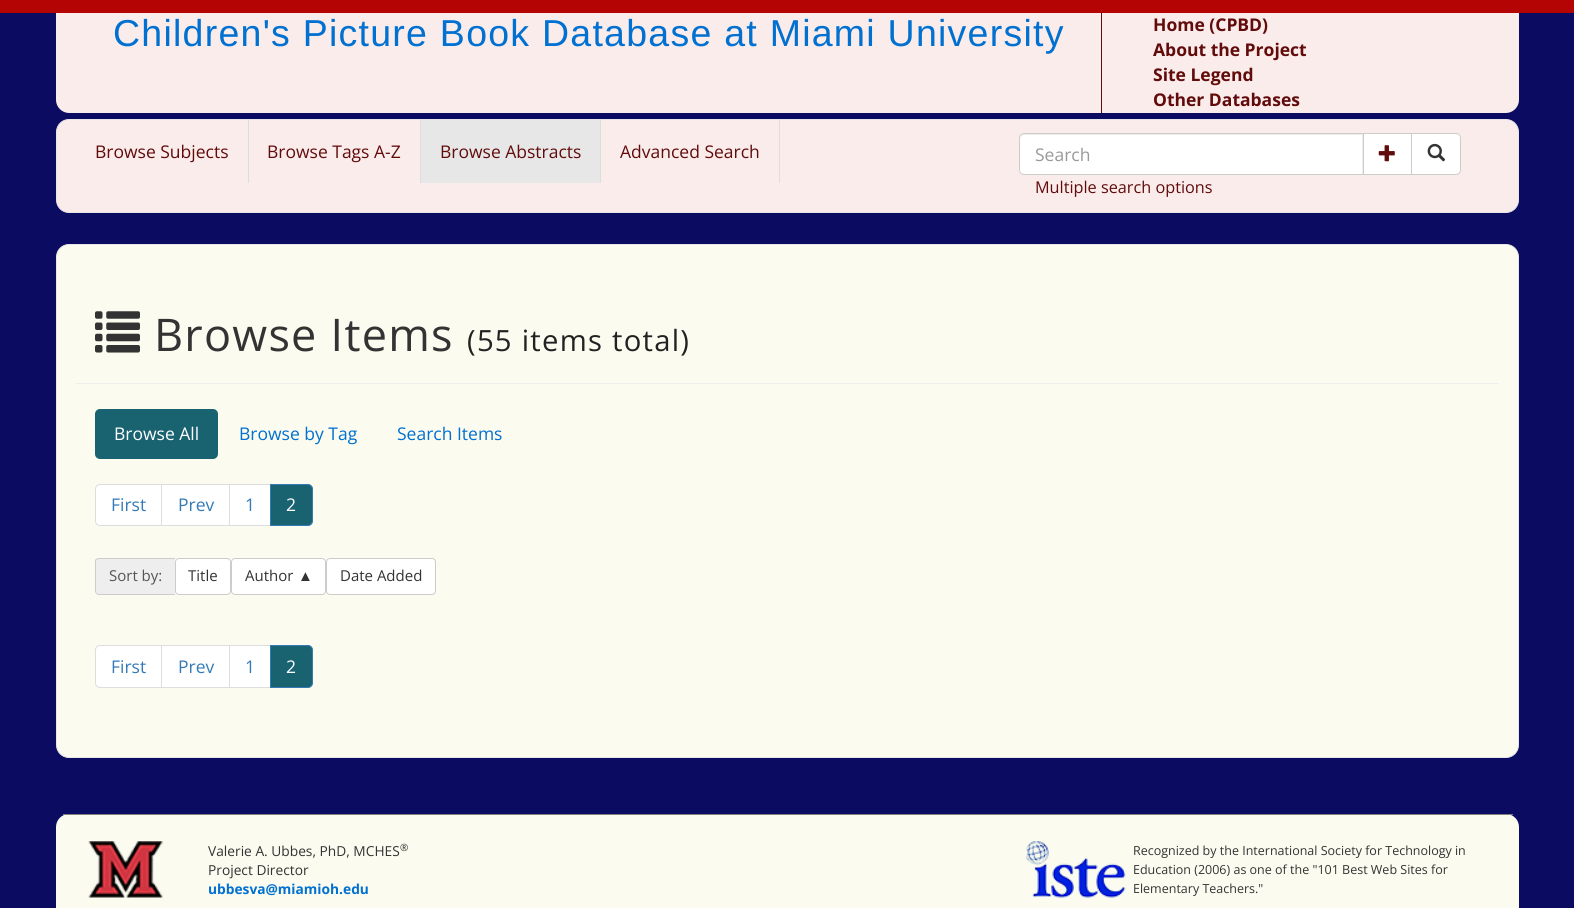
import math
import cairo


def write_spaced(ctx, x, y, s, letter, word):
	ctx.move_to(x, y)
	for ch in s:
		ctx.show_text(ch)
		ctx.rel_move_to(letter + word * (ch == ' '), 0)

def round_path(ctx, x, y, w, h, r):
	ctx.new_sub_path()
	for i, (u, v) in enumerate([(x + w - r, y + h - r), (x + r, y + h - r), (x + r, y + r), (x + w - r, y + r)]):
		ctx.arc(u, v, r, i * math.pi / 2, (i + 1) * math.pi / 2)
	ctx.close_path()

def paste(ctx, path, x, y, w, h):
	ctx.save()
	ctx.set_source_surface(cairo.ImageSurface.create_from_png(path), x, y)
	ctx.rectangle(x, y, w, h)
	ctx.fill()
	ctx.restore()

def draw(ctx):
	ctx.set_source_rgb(0.043, 0.043, 0.38)
	ctx.paint()
	ctx.set_source_rgb(0.706, 0.016, 0.016)
	ctx.rectangle(0, 0, 1574, 13)
	ctx.fill()
	ctx.set_source_rgb(0.98, 0.922, 0.918)
	ctx.new_path()
	ctx.move_to(56, 13)
	ctx.line_to(1519, 13)
	ctx.line_to(1519, 100)
	ctx.curve_to(1519, 107, 1513, 113, 1506, 113)
	ctx.line_to(69, 113)
	ctx.curve_to(62, 113, 56, 107, 56, 100)
	ctx.close_path()
	ctx.fill()
	ctx.select_font_face('Liberation Sans')
	ctx.set_font_size(37.5)
	ctx.set_source_rgb(0, 0.439, 0.82)
	write_spaced(ctx, 113, 46, 'Children\'s Picture Book Database at Miami University', 1.25, 0)
	ctx.set_source_rgb(0.38, 0.043, 0.043)
	ctx.rectangle(1101, 13, 1, 100)
	ctx.fill()
	ctx.select_font_face('Open Sans', cairo.FONT_SLANT_NORMAL, cairo.FONT_WEIGHT_BOLD)
	ctx.set_font_size(17.5)
	for x, y, s in [
		(1153, 31, 'Home (CPBD)'),
		(1153, 56, 'About the Project'),
		(1153, 81, 'Site Legend'),
		(1153, 106, 'Other Databases'),
	]:
		ctx.move_to(x, y)
		ctx.show_text(s)
	ctx.set_source_rgb(0.98, 0.922, 0.918)
	round_path(ctx, 56.5, 119.5, 1462, 93, 12.5)
	ctx.fill_preserve()
	ctx.set_source_rgb(0.906, 0.906, 0.906)
	ctx.set_line_width(1)
	ctx.stroke()
	ctx.set_source_rgb(0.867, 0.867, 0.867)
	ctx.rectangle(248, 120, 1, 63)
	ctx.fill()
	ctx.select_font_face('Open Sans')
	ctx.set_source_rgb(0.38, 0.043, 0.043)
	ctx.move_to(95, 158)
	ctx.show_text('Browse Subjects')
	ctx.set_source_rgb(0.867, 0.867, 0.867)
	ctx.rectangle(420, 120, 1, 63)
	ctx.fill()
	ctx.set_source_rgb(0.38, 0.043, 0.043)
	ctx.move_to(267, 158)
	ctx.show_text('Browse Tags A-Z')
	ctx.set_source_rgb(0.867, 0.867, 0.867)
	ctx.rectangle(600, 120, 1, 63)
	ctx.fill()
	ctx.set_source_rgb(0.906, 0.906, 0.906)
	ctx.rectangle(421, 120, 179, 63)
	ctx.fill()
	ctx.set_source_rgb(0.38, 0.043, 0.043)
	ctx.move_to(440, 158)
	ctx.show_text('Browse Abstracts')
	ctx.set_source_rgb(0.867, 0.867, 0.867)
	ctx.rectangle(779, 120, 1, 63)
	ctx.fill()
	ctx.set_source_rgb(0.38, 0.043, 0.043)
	ctx.move_to(620, 158)
	ctx.show_text('Advanced Search')
	ctx.set_source_rgb(1, 1, 1)
	ctx.new_path()
	ctx.move_to(1024, 133)
	ctx.line_to(1364, 133)
	ctx.line_to(1364, 175)
	ctx.line_to(1024, 175)
	ctx.curve_to(1021, 175, 1019, 173, 1019, 170)
	ctx.line_to(1019, 138)
	ctx.curve_to(1019, 135, 1021, 133, 1024, 133)
	ctx.close_path()
	ctx.fill()
	ctx.set_source_rgb(0.925, 0.925, 0.925)
	ctx.new_path()
	ctx.move_to(1024, 135)
	ctx.line_to(1362, 135)
	ctx.line_to(1362, 174)
	ctx.line_to(1363, 174)
	ctx.line_to(1363, 134)
	ctx.line_to(1024, 134)
	ctx.curve_to(1021, 134, 1020, 136, 1020, 139)
	ctx.curve_to(1020, 137, 1022, 135, 1024, 135)
	ctx.close_path()
	ctx.fill()
	ctx.new_path()
	ctx.move_to(1024, 133.5)
	ctx.line_to(1363.5, 133.5)
	ctx.line_to(1363.5, 174.5)
	ctx.line_to(1024, 174.5)
	ctx.curve_to(1021.5, 174.5, 1019.5, 172.5, 1019.5, 170)
	ctx.line_to(1019.5, 138)
	ctx.curve_to(1019.5, 135.5, 1021.5, 133.5, 1024, 133.5)
	ctx.close_path()
	ctx.set_source_rgb(0.8, 0.8, 0.8)
	ctx.stroke()
	ctx.set_source_rgb(0.6, 0.6, 0.6)
	ctx.move_to(1035, 161)
	ctx.show_text('Search')
	ctx.set_source_rgb(1, 1, 1)
	ctx.rectangle(1364, 134, 47, 40)
	ctx.fill()
	ctx.rectangle(1363.5, 133.5, 49, 41)
	ctx.set_source_rgb(0.8, 0.8, 0.8)
	ctx.stroke()
	paste(ctx, 'media/1.png', 1378, 145, 17, 17)
	ctx.set_source_rgb(1, 1, 1)
	ctx.new_path()
	ctx.move_to(1411.5, 133.5)
	ctx.line_to(1456, 133.5)
	ctx.curve_to(1458.5, 133.5, 1460.5, 135.5, 1460.5, 138)
	ctx.line_to(1460.5, 170)
	ctx.curve_to(1460.5, 172.5, 1458.5, 174.5, 1456, 174.5)
	ctx.line_to(1411.5, 174.5)
	ctx.close_path()
	ctx.fill_preserve()
	ctx.set_source_rgb(0.8, 0.8, 0.8)
	ctx.stroke()
	paste(ctx, 'media/2.png', 1427, 143, 19, 19)
	ctx.set_font_size(16.25)
	ctx.set_source_rgb(0.38, 0.043, 0.043)
	ctx.move_to(1035, 193)
	ctx.show_text('Multiple search options')
	ctx.set_source_rgb(0.984, 0.984, 0.937)
	round_path(ctx, 56.5, 244.5, 1462, 513, 12.5)
	ctx.fill_preserve()
	ctx.set_source_rgb(0.91, 0.91, 0.91)
	ctx.stroke()
	ctx.set_source_rgb(0.933, 0.933, 0.933)
	ctx.rectangle(76, 383, 1423, 1)
	ctx.fill()
	paste(ctx, 'media/3.png', 95, 311, 45, 42)
	ctx.set_font_size(45)
	ctx.set_source_rgb(0.2, 0.2, 0.2)
	write_spaced(ctx, 154, 351, 'Browse Items', 1.25, 0)
	ctx.set_font_size(29.25)
	ctx.set_source_rgb(0.133, 0.133, 0.133)
	write_spaced(ctx, 467, 351, '(55 items total)', 1.25, 0)
	ctx.set_source_rgb(0.098, 0.388, 0.443)
	round_path(ctx, 95, 409, 123, 50, 5)
	ctx.fill()
	ctx.set_font_size(17.5)
	ctx.set_source_rgb(1, 1, 1)
	ctx.move_to(114, 440)
	ctx.show_text('Browse All')
	ctx.set_source_rgb(0, 0.439, 0.82)
	ctx.move_to(239, 440)
	ctx.show_text('Browse by Tag')
	ctx.move_to(397, 440)
	ctx.show_text('Search Items')
	ctx.set_source_rgb(1, 1, 1)
	ctx.new_path()
	ctx.move_to(100, 484.5)
	ctx.line_to(162.5, 484.5)
	ctx.line_to(162.5, 525.5)
	ctx.line_to(100, 525.5)
	ctx.curve_to(97.5, 525.5, 95.5, 523.5, 95.5, 521)
	ctx.line_to(95.5, 489)
	ctx.curve_to(95.5, 486.5, 97.5, 484.5, 100, 484.5)
	ctx.close_path()
	ctx.fill_preserve()
	ctx.set_source_rgb(0.867, 0.867, 0.867)
	ctx.stroke()
	ctx.set_source_rgb(0.2, 0.478, 0.718)
	ctx.move_to(111, 511)
	ctx.show_text('First')
	ctx.set_source_rgb(1, 1, 1)
	ctx.rectangle(161.5, 484.5, 68, 41)
	ctx.fill_preserve()
	ctx.set_source_rgb(0.867, 0.867, 0.867)
	ctx.stroke()
	ctx.set_source_rgb(0.2, 0.478, 0.718)
	ctx.move_to(178, 511)
	ctx.show_text('Prev')
	ctx.set_source_rgb(1, 1, 1)
	ctx.rectangle(229.5, 484.5, 41, 41)
	ctx.fill_preserve()
	ctx.set_source_rgb(0.867, 0.867, 0.867)
	ctx.stroke()
	ctx.set_source_rgb(0.2, 0.478, 0.718)
	ctx.move_to(245, 511)
	ctx.show_text('1')
	ctx.set_source_rgb(0.098, 0.388, 0.443)
	ctx.new_path()
	ctx.move_to(270.5, 484.5)
	ctx.line_to(308, 484.5)
	ctx.curve_to(310.5, 484.5, 312.5, 486.5, 312.5, 489)
	ctx.line_to(312.5, 521)
	ctx.curve_to(312.5, 523.5, 310.5, 525.5, 308, 525.5)
	ctx.line_to(270.5, 525.5)
	ctx.close_path()
	ctx.fill_preserve()
	ctx.set_source_rgb(0.2, 0.478, 0.718)
	ctx.stroke()
	ctx.set_source_rgb(1, 1, 1)
	ctx.move_to(286, 511)
	ctx.show_text('2')
	ctx.set_source_rgb(0.933, 0.933, 0.933)
	ctx.new_path()
	ctx.move_to(99, 558)
	ctx.line_to(175, 558)
	ctx.line_to(175, 595)
	ctx.line_to(99, 595)
	ctx.curve_to(97, 595, 95, 593, 95, 591)
	ctx.line_to(95, 562)
	ctx.curve_to(95, 560, 97, 558, 99, 558)
	ctx.close_path()
	ctx.fill()
	ctx.set_source_rgb(0.8, 0.8, 0.8)
	ctx.set_fill_rule(cairo.FILL_RULE_EVEN_ODD)
	ctx.new_path()
	ctx.move_to(99, 558)
	ctx.line_to(175, 558)
	ctx.line_to(175, 595)
	ctx.line_to(99, 595)
	ctx.curve_to(97, 595, 95, 593, 95, 591)
	ctx.line_to(95, 561)
	ctx.curve_to(95, 559, 97, 558, 99, 558)
	ctx.close_path()
	ctx.move_to(99, 559)
	ctx.line_to(175, 559)
	ctx.line_to(175, 594)
	ctx.line_to(99, 594)
	ctx.curve_to(97, 594, 96, 593, 96, 591)
	ctx.line_to(96, 561)
	ctx.curve_to(96, 560, 97, 559, 99, 559)
	ctx.close_path()
	ctx.fill()
	ctx.set_font_size(15)
	ctx.set_source_rgb(0.333, 0.333, 0.333)
	ctx.move_to(109, 581)
	ctx.show_text('Sort by:')
	ctx.set_source_rgb(1, 1, 1)
	round_path(ctx, 175.5, 558.5, 55, 36, 3.5)
	ctx.fill_preserve()
	ctx.set_source_rgb(0.8, 0.8, 0.8)
	ctx.stroke()
	ctx.set_source_rgb(0.2, 0.2, 0.2)
	ctx.move_to(188, 581)
	ctx.show_text('Title')
	ctx.set_source_rgb(1, 1, 1)
	round_path(ctx, 231.5, 558.5, 94, 36, 3.5)
	ctx.fill_preserve()
	ctx.set_source_rgb(0.8, 0.8, 0.8)
	ctx.stroke()
	ctx.set_source_rgb(0.2, 0.2, 0.2)
	ctx.move_to(245, 581)
	ctx.show_text('Author')
	ctx.select_font_face('Liberation Serif')
	ctx.move_to(298, 581)
	ctx.show_text('▲')
	ctx.set_source_rgb(1, 1, 1)
	round_path(ctx, 326.5, 558.5, 109, 36, 3.5)
	ctx.fill_preserve()
	ctx.set_source_rgb(0.8, 0.8, 0.8)
	ctx.stroke()
	ctx.select_font_face('Open Sans')
	ctx.set_source_rgb(0.2, 0.2, 0.2)
	ctx.move_to(340, 581)
	ctx.show_text('Date Added')
	ctx.set_source_rgb(1, 1, 1)
	ctx.new_path()
	ctx.move_to(100, 645.5)
	ctx.line_to(162.5, 645.5)
	ctx.line_to(162.5, 687.5)
	ctx.line_to(100, 687.5)
	ctx.curve_to(97.5, 687.5, 95.5, 685.5, 95.5, 683)
	ctx.line_to(95.5, 650)
	ctx.curve_to(95.5, 647.5, 97.5, 645.5, 100, 645.5)
	ctx.close_path()
	ctx.fill_preserve()
	ctx.set_source_rgb(0.867, 0.867, 0.867)
	ctx.stroke()
	ctx.set_font_size(17.5)
	ctx.set_source_rgb(0.2, 0.478, 0.718)
	ctx.move_to(111, 673)
	ctx.show_text('First')
	ctx.set_source_rgb(1, 1, 1)
	ctx.rectangle(161.5, 645.5, 68, 42)
	ctx.fill_preserve()
	ctx.set_source_rgb(0.867, 0.867, 0.867)
	ctx.stroke()
	ctx.set_source_rgb(0.2, 0.478, 0.718)
	ctx.move_to(178, 673)
	ctx.show_text('Prev')
	ctx.set_source_rgb(1, 1, 1)
	ctx.rectangle(229.5, 645.5, 41, 42)
	ctx.fill_preserve()
	ctx.set_source_rgb(0.867, 0.867, 0.867)
	ctx.stroke()
	ctx.set_source_rgb(0.2, 0.478, 0.718)
	ctx.move_to(245, 673)
	ctx.show_text('1')
	ctx.set_source_rgb(0.098, 0.388, 0.443)
	ctx.new_path()
	ctx.move_to(270.5, 645.5)
	ctx.line_to(308, 645.5)
	ctx.curve_to(310.5, 645.5, 312.5, 647.5, 312.5, 650)
	ctx.line_to(312.5, 683)
	ctx.curve_to(312.5, 685.5, 310.5, 687.5, 308, 687.5)
	ctx.line_to(270.5, 687.5)
	ctx.close_path()
	ctx.fill_preserve()
	ctx.set_source_rgb(0.2, 0.478, 0.718)
	ctx.stroke()
	ctx.set_source_rgb(1, 1, 1)
	ctx.move_to(286, 673)
	ctx.show_text('2')
	ctx.set_source_rgb(0.984, 0.984, 0.937)
	round_path(ctx, 56, 814, 1463, 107, 13)
	ctx.fill()
	ctx.set_source_rgb(0.502, 0.502, 0.502)
	ctx.rectangle(63, 814, 1450, 1)
	ctx.fill()
	paste(ctx, 'media/4.png', 88, 841, 75, 57)
	ctx.set_font_size(13.75)
	ctx.set_source_rgb(0.2, 0.2, 0.2)
	ctx.move_to(208, 856)
	ctx.show_text('Valerie A. Ubbes, PhD, MCHES')
	ctx.set_font_size(10)
	ctx.move_to(400, 851)
	ctx.show_text('®')
	ctx.set_font_size(13.75)
	ctx.move_to(208, 875)
	ctx.show_text('Project Director')
	ctx.select_font_face('Open Sans', cairo.FONT_SLANT_NORMAL, cairo.FONT_WEIGHT_BOLD)
	ctx.set_source_rgb(0, 0.439, 0.82)
	ctx.move_to(208, 894)
	ctx.show_text('ubbesva@miamioh.edu')
	paste(ctx, 'media/5.png', 1026, 841, 100, 57)
	ctx.select_font_face('Open Sans')
	ctx.set_font_size(12.5)
	ctx.set_source_rgb(0.2, 0.2, 0.2)
	for x, y, s in [
		(1133, 855, 'Recognized by the International Society for Technology in'),
		(1133, 874, 'Education (2006) as one of the "101 Best Web Sites for'),
		(1133, 893, 'Elementary Teachers."'),
	]:
		ctx.move_to(x, y)
		ctx.show_text(s)


surface = cairo.ImageSurface(cairo.FORMAT_RGB24, 1574, 908)
ctx = cairo.Context(surface)
options = cairo.FontOptions()
options.set_hint_metrics(cairo.HINT_METRICS_OFF)
options.set_hint_style(cairo.HINT_STYLE_NONE)
ctx.set_font_options(options)
ctx.set_miter_limit(4)
draw(ctx)
surface.write_to_png('image.png')
